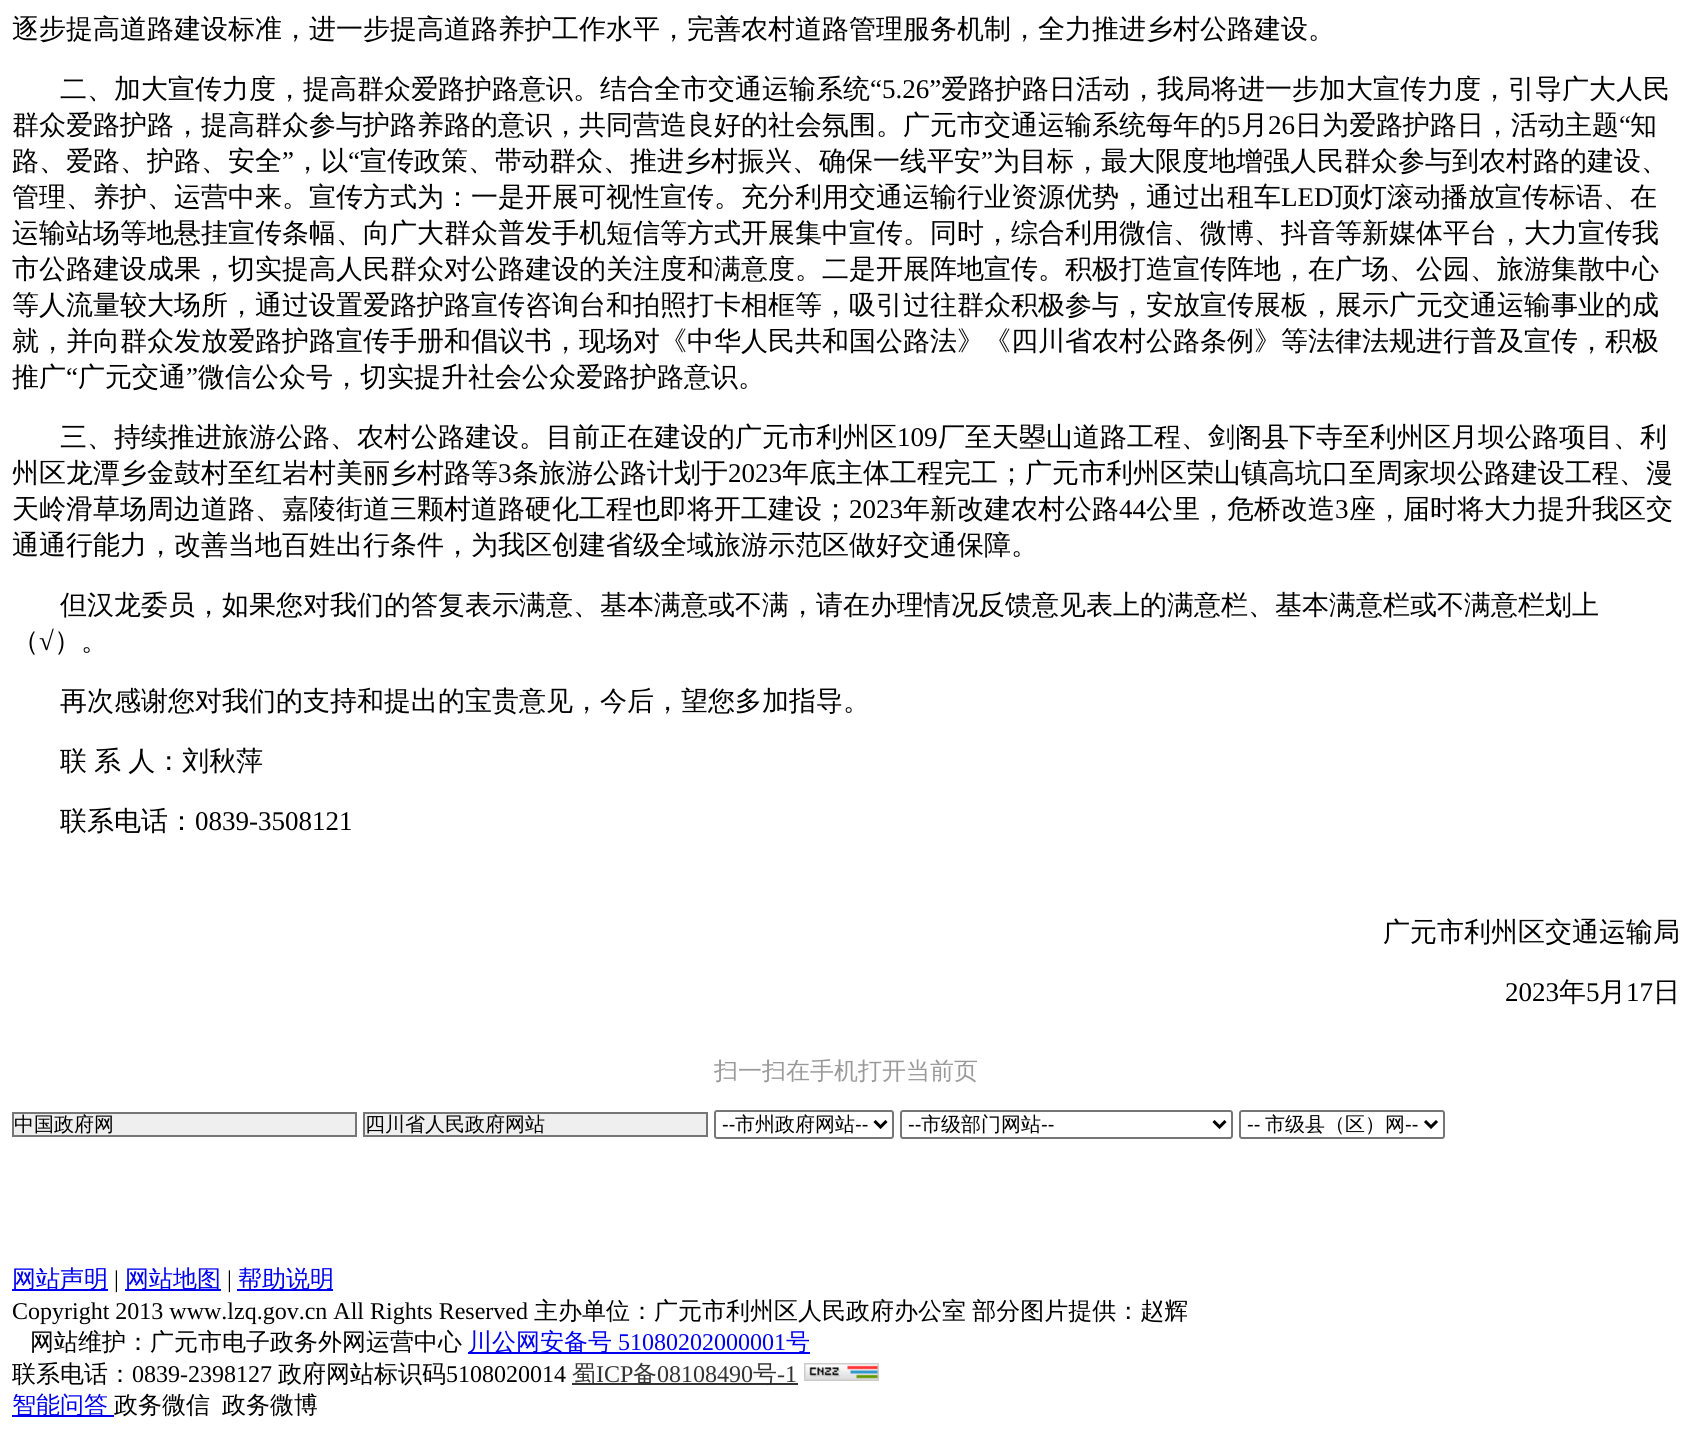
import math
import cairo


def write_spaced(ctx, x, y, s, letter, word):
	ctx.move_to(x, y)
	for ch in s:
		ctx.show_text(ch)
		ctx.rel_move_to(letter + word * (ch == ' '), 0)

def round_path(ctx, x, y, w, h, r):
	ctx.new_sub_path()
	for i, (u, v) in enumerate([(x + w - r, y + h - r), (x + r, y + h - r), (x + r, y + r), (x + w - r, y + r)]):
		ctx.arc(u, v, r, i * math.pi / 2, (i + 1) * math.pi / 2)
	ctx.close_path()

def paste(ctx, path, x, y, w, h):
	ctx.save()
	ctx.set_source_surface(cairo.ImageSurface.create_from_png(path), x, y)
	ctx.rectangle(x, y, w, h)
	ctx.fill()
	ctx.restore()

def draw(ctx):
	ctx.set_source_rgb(1, 1, 1)
	ctx.paint()
	ctx.select_font_face('WenQuanYi Zen Hei Medium')
	ctx.set_font_size(27)
	ctx.set_source_rgb(0, 0, 0)
	ctx.move_to(12, 38)
	ctx.show_text('逐步提高道路建设标准，进一步提高道路养护工作水平，完善农村道路管理服务机制，全力推进乡村公路建设。')
	ctx.move_to(60, 98)
	ctx.show_text('二、加大宣传力度，提高群众爱路护路意识。结合全市交通运输系统')
	ctx.select_font_face('Liberation Serif')
	ctx.move_to(870, 98)
	ctx.show_text('“5.26”')
	ctx.select_font_face('WenQuanYi Zen Hei Medium')
	ctx.move_to(941, 98)
	ctx.show_text('爱路护路日活动，我局将进一步加大宣传力度，引导广大人民')
	ctx.move_to(12, 134)
	ctx.show_text('群众爱路护路，提高群众参与护路养路的意识，共同营造良好的社会氛围。广元市交通运输系统每年的')
	ctx.select_font_face('Liberation Serif')
	ctx.move_to(1227, 134)
	ctx.show_text('5')
	ctx.select_font_face('WenQuanYi Zen Hei Medium')
	ctx.move_to(1241, 134)
	ctx.show_text('月')
	ctx.select_font_face('Liberation Serif')
	ctx.move_to(1268, 134)
	ctx.show_text('26')
	ctx.select_font_face('WenQuanYi Zen Hei Medium')
	ctx.move_to(1295, 134)
	ctx.show_text('日为爱路护路日，活动主题')
	ctx.select_font_face('Liberation Serif')
	ctx.move_to(1619, 134)
	ctx.show_text('“')
	ctx.select_font_face('WenQuanYi Zen Hei Medium')
	ctx.move_to(1630, 134)
	ctx.show_text('知')
	ctx.move_to(12, 170)
	ctx.show_text('路、爱路、护路、安全')
	ctx.select_font_face('Liberation Serif')
	ctx.move_to(282, 170)
	ctx.show_text('”')
	ctx.select_font_face('WenQuanYi Zen Hei Medium')
	ctx.move_to(294, 170)
	ctx.show_text('，以')
	ctx.select_font_face('Liberation Serif')
	ctx.move_to(348, 170)
	ctx.show_text('“')
	ctx.select_font_face('WenQuanYi Zen Hei Medium')
	ctx.move_to(360, 170)
	ctx.show_text('宣传政策、带动群众、推进乡村振兴、确保一线平安')
	ctx.select_font_face('Liberation Serif')
	ctx.move_to(981, 170)
	ctx.show_text('”')
	ctx.select_font_face('WenQuanYi Zen Hei Medium')
	ctx.move_to(993, 170)
	ctx.show_text('为目标，最大限度地增强人民群众参与到农村路的建设、')
	ctx.move_to(12, 206)
	ctx.show_text('管理、养护、运营中来。宣传方式为：一是开展可视性宣传。充分利用交通运输行业资源优势，通过出租车')
	ctx.select_font_face('Liberation Serif')
	ctx.move_to(1281, 206)
	ctx.show_text('LED')
	ctx.select_font_face('WenQuanYi Zen Hei Medium')
	for x, y, s in [
		(1333, 206, '顶灯滚动播放宣传标语、在'),
		(12, 242, '运输站场等地悬挂宣传条幅、向广大群众普发手机短信等方式开展集中宣传。同时，综合利用微信、微博、抖音等新媒体平台，大力宣传我'),
		(12, 278, '市公路建设成果，切实提高人民群众对公路建设的关注度和满意度。二是开展阵地宣传。积极打造宣传阵地，在广场、公园、旅游集散中心'),
		(12, 314, '等人流量较大场所，通过设置爱路护路宣传咨询台和拍照打卡相框等，吸引过往群众积极参与，安放宣传展板，展示广元交通运输事业的成'),
		(12, 350, '就，并向群众发放爱路护路宣传手册和倡议书，现场对《中华人民共和国公路法》《四川省农村公路条例》等法律法规进行普及宣传，积极'),
		(12, 386, '推广'),
	]:
		ctx.move_to(x, y)
		ctx.show_text(s)
	ctx.select_font_face('Liberation Serif')
	ctx.move_to(66, 386)
	ctx.show_text('“')
	ctx.select_font_face('WenQuanYi Zen Hei Medium')
	ctx.move_to(78, 386)
	ctx.show_text('广元交通')
	ctx.select_font_face('Liberation Serif')
	ctx.move_to(186, 386)
	ctx.show_text('”')
	ctx.select_font_face('WenQuanYi Zen Hei Medium')
	ctx.move_to(198, 386)
	ctx.show_text('微信公众号，切实提升社会公众爱路护路意识。')
	ctx.move_to(60, 446)
	ctx.show_text('三、持续推进旅游公路、农村公路建设。目前正在建设的广元市利州区')
	ctx.select_font_face('Liberation Serif')
	ctx.move_to(897, 446)
	ctx.show_text('109')
	ctx.select_font_face('WenQuanYi Zen Hei Medium')
	ctx.move_to(938, 446)
	ctx.show_text('厂至天曌山道路工程、剑阁县下寺至利州区月坝公路项目、利')
	ctx.move_to(12, 482)
	ctx.show_text('州区龙潭乡金鼓村至红岩村美丽乡村路等')
	ctx.select_font_face('Liberation Serif')
	ctx.move_to(498, 482)
	ctx.show_text('3')
	ctx.select_font_face('WenQuanYi Zen Hei Medium')
	ctx.move_to(512, 482)
	ctx.show_text('条旅游公路计划于')
	ctx.select_font_face('Liberation Serif')
	ctx.move_to(728, 482)
	ctx.show_text('2023')
	ctx.select_font_face('WenQuanYi Zen Hei Medium')
	ctx.move_to(782, 482)
	ctx.show_text('年底主体工程完工；广元市利州区荣山镇高坑口至周家坝公路建设工程、漫')
	ctx.move_to(12, 518)
	ctx.show_text('天岭滑草场周边道路、嘉陵街道三颗村道路硬化工程也即将开工建设；')
	ctx.select_font_face('Liberation Serif')
	ctx.move_to(849, 518)
	ctx.show_text('2023')
	ctx.select_font_face('WenQuanYi Zen Hei Medium')
	ctx.move_to(903, 518)
	ctx.show_text('年新改建农村公路')
	ctx.select_font_face('Liberation Serif')
	ctx.move_to(1119, 518)
	ctx.show_text('44')
	ctx.select_font_face('WenQuanYi Zen Hei Medium')
	ctx.move_to(1146, 518)
	ctx.show_text('公里，危桥改造')
	ctx.select_font_face('Liberation Serif')
	ctx.move_to(1335, 518)
	ctx.show_text('3')
	ctx.select_font_face('WenQuanYi Zen Hei Medium')
	for x, y, s in [
		(1349, 518, '座，届时将大力提升我区交'),
		(12, 554, '通通行能力，改善当地百姓出行条件，为我区创建省级全域旅游示范区做好交通保障。'),
		(60, 614, '但汉龙委员，如果您对我们的答复表示满意、基本满意或不满，请在办理情况反馈意见表上的满意栏、基本满意栏或不满意栏划上'),
		(12, 650, '（'),
	]:
		ctx.move_to(x, y)
		ctx.show_text(s)
	ctx.select_font_face('Liberation Serif')
	ctx.move_to(39, 650)
	ctx.show_text('√')
	ctx.select_font_face('WenQuanYi Zen Hei Medium')
	ctx.move_to(54, 650)
	ctx.show_text('）。')
	ctx.move_to(60, 710)
	ctx.show_text('再次感谢您对我们的支持和提出的宝贵意见，今后，望您多加指导。')
	write_spaced(ctx, 60, 770, '联 系 人：刘秋萍', 0, -1)
	ctx.move_to(60, 830)
	ctx.show_text('联系电话：')
	ctx.select_font_face('Liberation Serif')
	ctx.move_to(195, 830)
	ctx.show_text('0839-3508121')
	ctx.select_font_face('WenQuanYi Zen Hei Medium')
	ctx.move_to(1383, 941)
	ctx.show_text('广元市利州区交通运输局')
	ctx.select_font_face('Liberation Serif')
	ctx.move_to(1505, 1001)
	ctx.show_text('2023')
	ctx.select_font_face('WenQuanYi Zen Hei Medium')
	ctx.move_to(1559, 1001)
	ctx.show_text('年')
	ctx.select_font_face('Liberation Serif')
	ctx.move_to(1586, 1001)
	ctx.show_text('5')
	ctx.select_font_face('WenQuanYi Zen Hei Medium')
	ctx.move_to(1599, 1001)
	ctx.show_text('月')
	ctx.select_font_face('Liberation Serif')
	ctx.move_to(1626, 1001)
	ctx.show_text('17')
	ctx.select_font_face('WenQuanYi Zen Hei Medium')
	ctx.move_to(1653, 1001)
	ctx.show_text('日')
	ctx.set_font_size(24)
	ctx.set_source_rgb(0.6, 0.6, 0.6)
	ctx.move_to(714, 1079)
	ctx.show_text('扫一扫在手机打开当前页')
	ctx.set_source_rgb(0.937, 0.937, 0.937)
	ctx.rectangle(13, 1113, 343, 23)
	ctx.fill_preserve()
	ctx.set_source_rgb(0.463, 0.463, 0.463)
	ctx.stroke()
	ctx.set_font_size(20)
	ctx.set_source_rgb(0, 0, 0)
	ctx.move_to(14, 1131)
	ctx.show_text('中国政府网')
	ctx.set_source_rgb(0.937, 0.937, 0.937)
	ctx.rectangle(364, 1113, 343, 23)
	ctx.fill_preserve()
	ctx.set_source_rgb(0.463, 0.463, 0.463)
	ctx.stroke()
	ctx.set_source_rgb(0, 0, 0)
	ctx.move_to(365, 1131)
	ctx.show_text('四川省人民政府网站')
	round_path(ctx, 715, 1111, 178, 27, 2)
	ctx.set_source_rgb(0.463, 0.463, 0.463)
	ctx.stroke()
	ctx.new_path()
	ctx.move_to(874.5, 1121)
	ctx.line_to(880.5, 1127)
	ctx.line_to(886.5, 1121)
	ctx.set_source_rgb(0, 0, 0)
	ctx.set_line_width(3)
	ctx.stroke()
	ctx.select_font_face('Liberation Sans')
	ctx.move_to(722, 1131)
	ctx.show_text('--')
	ctx.select_font_face('WenQuanYi Zen Hei Medium')
	ctx.move_to(735, 1131)
	ctx.show_text('市州政府网站')
	ctx.select_font_face('Liberation Sans')
	ctx.move_to(855, 1131)
	ctx.show_text('--')
	round_path(ctx, 901, 1111, 331, 27, 2)
	ctx.set_source_rgb(0.463, 0.463, 0.463)
	ctx.set_line_width(2)
	ctx.stroke()
	ctx.new_path()
	ctx.move_to(1213.5, 1121)
	ctx.line_to(1219.5, 1127)
	ctx.line_to(1225.5, 1121)
	ctx.set_source_rgb(0, 0, 0)
	ctx.set_line_width(3)
	ctx.stroke()
	ctx.move_to(908, 1131)
	ctx.show_text('--')
	ctx.select_font_face('WenQuanYi Zen Hei Medium')
	ctx.move_to(921, 1131)
	ctx.show_text('市级部门网站')
	ctx.select_font_face('Liberation Sans')
	ctx.move_to(1041, 1131)
	ctx.show_text('--')
	round_path(ctx, 1240, 1111, 204, 27, 2)
	ctx.set_source_rgb(0.463, 0.463, 0.463)
	ctx.set_line_width(2)
	ctx.stroke()
	ctx.new_path()
	ctx.move_to(1425, 1121)
	ctx.line_to(1431, 1127)
	ctx.line_to(1437, 1121)
	ctx.set_source_rgb(0, 0, 0)
	ctx.set_line_width(3)
	ctx.stroke()
	ctx.move_to(1247, 1131)
	ctx.show_text('--')
	ctx.select_font_face('WenQuanYi Zen Hei Medium')
	ctx.move_to(1265, 1131)
	ctx.show_text('市级县（区）网')
	ctx.select_font_face('Liberation Sans')
	ctx.move_to(1405, 1131)
	ctx.show_text('--')
	ctx.set_source_rgb(0, 0, 0.933)
	ctx.rectangle(12, 1289, 96, 2)
	ctx.fill()
	ctx.select_font_face('WenQuanYi Zen Hei Medium')
	ctx.set_font_size(24)
	ctx.move_to(12, 1287)
	ctx.show_text('网站声明')
	ctx.select_font_face('Liberation Serif')
	ctx.set_source_rgb(0, 0, 0)
	ctx.move_to(114, 1287)
	ctx.show_text('|')
	ctx.set_source_rgb(0, 0, 0.933)
	ctx.rectangle(125, 1289, 96, 2)
	ctx.fill()
	ctx.select_font_face('WenQuanYi Zen Hei Medium')
	ctx.move_to(125, 1287)
	ctx.show_text('网站地图')
	ctx.select_font_face('Liberation Serif')
	ctx.set_source_rgb(0, 0, 0)
	ctx.move_to(227, 1287)
	ctx.show_text('|')
	ctx.set_source_rgb(0, 0, 0.933)
	ctx.rectangle(237, 1289, 96, 2)
	ctx.fill()
	ctx.select_font_face('WenQuanYi Zen Hei Medium')
	ctx.move_to(238, 1287)
	ctx.show_text('帮助说明')
	ctx.select_font_face('Liberation Serif')
	ctx.set_source_rgb(0, 0, 0)
	ctx.move_to(12, 1319)
	ctx.show_text('Copyright 2013 www.lzq.gov.cn All Rights Reserved')
	ctx.select_font_face('WenQuanYi Zen Hei Medium')
	write_spaced(ctx, 534, 1319, '主办单位：广元市利州区人民政府办公室 部分图片提供：赵辉', 0, -1)
	ctx.move_to(30, 1350)
	ctx.show_text('网站维护：广元市电子政务外网运营中心')
	ctx.set_source_rgb(0, 0, 0.933)
	ctx.rectangle(468, 1352, 342, 2)
	ctx.fill()
	ctx.move_to(468, 1350)
	ctx.show_text('川公网安备号')
	ctx.select_font_face('Liberation Serif')
	ctx.move_to(618, 1350)
	ctx.show_text('51080202000001')
	ctx.select_font_face('WenQuanYi Zen Hei Medium')
	ctx.move_to(786, 1350)
	ctx.show_text('号')
	ctx.set_source_rgb(0, 0, 0)
	ctx.move_to(12, 1382)
	ctx.show_text('联系电话：')
	ctx.select_font_face('Liberation Serif')
	ctx.move_to(132, 1382)
	ctx.show_text('0839-2398127')
	ctx.select_font_face('WenQuanYi Zen Hei Medium')
	ctx.move_to(278, 1382)
	ctx.show_text('政府网站标识码')
	ctx.select_font_face('Liberation Serif')
	ctx.move_to(446, 1382)
	ctx.show_text('5108020014')
	ctx.set_source_rgb(0.2, 0.2, 0.2)
	ctx.rectangle(572, 1383, 226, 2)
	ctx.fill()
	ctx.select_font_face('WenQuanYi Zen Hei Medium')
	ctx.move_to(572, 1382)
	ctx.show_text('蜀')
	ctx.select_font_face('Liberation Serif')
	ctx.move_to(596, 1382)
	ctx.show_text('ICP')
	ctx.select_font_face('WenQuanYi Zen Hei Medium')
	ctx.move_to(633, 1382)
	ctx.show_text('备')
	ctx.select_font_face('Liberation Serif')
	ctx.move_to(657, 1382)
	ctx.show_text('08108490')
	ctx.select_font_face('WenQuanYi Zen Hei Medium')
	ctx.move_to(753, 1382)
	ctx.show_text('号')
	ctx.select_font_face('Liberation Serif')
	ctx.move_to(777, 1382)
	ctx.show_text('-1')
	paste(ctx, 'media/1.png', 804, 1363, 75, 18)
	ctx.set_source_rgb(0, 0, 0.933)
	ctx.rectangle(12, 1415, 102, 2)
	ctx.fill()
	ctx.select_font_face('WenQuanYi Zen Hei Medium')
	ctx.move_to(12, 1413)
	ctx.show_text('智能问答')
	ctx.set_source_rgb(0, 0, 0)
	ctx.move_to(114, 1413)
	ctx.show_text('政务微信')
	ctx.move_to(222, 1413)
	ctx.show_text('政务微博')


surface = cairo.ImageSurface(cairo.FORMAT_RGB24, 1692, 1433)
ctx = cairo.Context(surface)
options = cairo.FontOptions()
options.set_hint_metrics(cairo.HINT_METRICS_OFF)
options.set_hint_style(cairo.HINT_STYLE_NONE)
ctx.set_font_options(options)
ctx.set_miter_limit(4)
draw(ctx)
surface.write_to_png('image.png')
